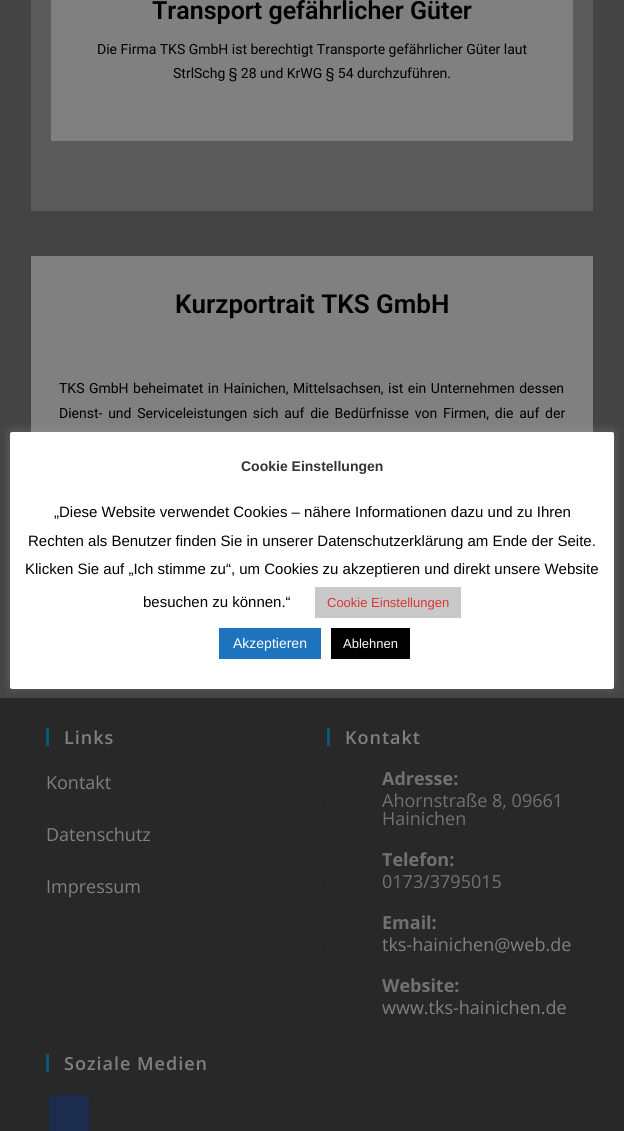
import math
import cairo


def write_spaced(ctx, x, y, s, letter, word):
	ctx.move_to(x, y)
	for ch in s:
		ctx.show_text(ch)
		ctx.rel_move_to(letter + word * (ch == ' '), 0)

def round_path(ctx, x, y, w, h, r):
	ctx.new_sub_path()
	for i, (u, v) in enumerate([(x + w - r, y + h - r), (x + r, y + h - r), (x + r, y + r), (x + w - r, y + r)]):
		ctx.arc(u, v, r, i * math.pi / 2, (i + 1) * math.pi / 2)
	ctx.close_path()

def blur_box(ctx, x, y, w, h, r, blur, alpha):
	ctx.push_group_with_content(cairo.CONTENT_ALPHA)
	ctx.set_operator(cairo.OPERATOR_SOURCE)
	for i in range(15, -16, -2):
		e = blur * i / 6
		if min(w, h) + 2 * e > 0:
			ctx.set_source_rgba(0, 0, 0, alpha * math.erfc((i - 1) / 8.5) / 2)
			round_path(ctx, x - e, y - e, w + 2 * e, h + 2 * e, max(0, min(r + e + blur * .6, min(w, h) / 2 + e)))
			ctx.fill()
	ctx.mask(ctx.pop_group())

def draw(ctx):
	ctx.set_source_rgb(0.267, 0.267, 0.267)
	ctx.paint()
	ctx.set_source_rgb(0.357, 0.357, 0.357)
	ctx.rectangle(31, 0, 562, 211)
	ctx.fill()
	ctx.set_source_rgb(0.502, 0.502, 0.502)
	ctx.rectangle(51, 0, 522, 141)
	ctx.fill()
	ctx.select_font_face('Roboto SemiBold')
	ctx.set_font_size(25)
	ctx.set_source_rgb(0, 0, 0)
	ctx.move_to(152, 19)
	ctx.show_text('Transport gefährlicher Güter')
	ctx.select_font_face('Roboto')
	ctx.set_font_size(14)
	ctx.move_to(97, 54)
	ctx.show_text('Die Firma TKS GmbH ist berechtigt Transporte gefährlicher Güter laut')
	ctx.move_to(173, 78)
	ctx.show_text('StrlSchg § 28 und KrWG § 54 durchzuführen.')
	ctx.set_source_rgb(0.502, 0.502, 0.502)
	ctx.rectangle(31, 256, 562, 176)
	ctx.fill()
	ctx.select_font_face('Roboto SemiBold')
	ctx.set_font_size(26)
	ctx.set_source_rgb(0, 0, 0)
	ctx.move_to(175, 313)
	ctx.show_text('Kurzportrait TKS GmbH')
	ctx.select_font_face('Roboto')
	ctx.set_font_size(14)
	write_spaced(ctx, 59, 393, 'TKS GmbH beheimatet in Hainichen, Mittelsachsen, ist ein Unternehmen dessen', 0, 1)
	write_spaced(ctx, 59, 418, 'Dienst- und Serviceleistungen sich auf die Bedürfnisse von Firmen, die auf der', 0, 2.25)
	ctx.set_source_rgb(0.157, 0.157, 0.157)
	ctx.rectangle(0, 698, 624, 433)
	ctx.fill()
	ctx.set_source_rgb(0.039, 0.345, 0.471)
	ctx.rectangle(46, 728, 3, 18)
	ctx.fill()
	ctx.select_font_face('Open Sans SemiBold')
	ctx.set_font_size(18)
	ctx.set_source_rgb(0.502, 0.502, 0.502)
	write_spaced(ctx, 64, 744, 'Links', 1, 0)
	ctx.select_font_face('Open Sans')
	for x, y, s in [
		(46, 789, 'Kontakt'),
		(46, 841, 'Datenschutz'),
		(46, 893, 'Impressum'),
	]:
		ctx.move_to(x, y)
		ctx.show_text(s)
	ctx.set_source_rgb(0.039, 0.345, 0.471)
	ctx.rectangle(327, 728, 3, 18)
	ctx.fill()
	ctx.select_font_face('Open Sans SemiBold')
	ctx.set_source_rgb(0.502, 0.502, 0.502)
	write_spaced(ctx, 345, 744, 'Kontakt', 1, 0)
	round_path(ctx, 327.5, 766.5, 39, 39, 1.5)
	ctx.set_source_rgb(0.169, 0.169, 0.169)
	ctx.set_line_width(1)
	ctx.stroke()
	ctx.select_font_face('Open Sans', cairo.FONT_SLANT_NORMAL, cairo.FONT_WEIGHT_BOLD)
	ctx.set_source_rgb(0.443, 0.443, 0.443)
	ctx.move_to(382, 785)
	ctx.show_text('Adresse:')
	ctx.select_font_face('Open Sans')
	ctx.move_to(382, 807)
	ctx.show_text('Ahornstraße 8, 09661')
	ctx.move_to(382, 825)
	ctx.show_text('Hainichen')
	round_path(ctx, 327.5, 847.5, 39, 39, 1.5)
	ctx.set_source_rgb(0.169, 0.169, 0.169)
	ctx.stroke()
	ctx.select_font_face('Open Sans', cairo.FONT_SLANT_NORMAL, cairo.FONT_WEIGHT_BOLD)
	ctx.set_source_rgb(0.443, 0.443, 0.443)
	ctx.move_to(382, 866)
	ctx.show_text('Telefon:')
	ctx.select_font_face('Open Sans')
	ctx.move_to(382, 888)
	ctx.show_text('0173/3795015')
	round_path(ctx, 327.5, 910.5, 39, 39, 1.5)
	ctx.set_source_rgb(0.169, 0.169, 0.169)
	ctx.stroke()
	ctx.select_font_face('Open Sans', cairo.FONT_SLANT_NORMAL, cairo.FONT_WEIGHT_BOLD)
	ctx.set_source_rgb(0.443, 0.443, 0.443)
	ctx.move_to(382, 929)
	ctx.show_text('Email:')
	ctx.select_font_face('Open Sans')
	ctx.set_source_rgb(0.502, 0.502, 0.502)
	ctx.move_to(382, 951)
	ctx.show_text('tks-hainichen@web.de')
	round_path(ctx, 327.5, 973.5, 39, 39, 1.5)
	ctx.set_source_rgb(0.169, 0.169, 0.169)
	ctx.stroke()
	ctx.select_font_face('Open Sans', cairo.FONT_SLANT_NORMAL, cairo.FONT_WEIGHT_BOLD)
	ctx.set_source_rgb(0.443, 0.443, 0.443)
	ctx.move_to(382, 992)
	ctx.show_text('Website:')
	ctx.select_font_face('Open Sans')
	ctx.set_source_rgb(0.502, 0.502, 0.502)
	ctx.move_to(382, 1014)
	ctx.show_text('www.tks-hainichen.de')
	ctx.set_source_rgb(0.039, 0.345, 0.471)
	ctx.rectangle(46, 1054, 3, 18)
	ctx.fill()
	ctx.select_font_face('Open Sans SemiBold')
	ctx.set_source_rgb(0.502, 0.502, 0.502)
	write_spaced(ctx, 64, 1070, 'Soziale Medien', 1, 0)
	ctx.set_source_rgb(0.11, 0.173, 0.306)
	round_path(ctx, 49, 1095, 40, 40, 4)
	ctx.fill()
	ctx.set_source_rgb(0.675, 0.671, 0.671)
	blur_box(ctx, 10, 431, 604, 257, 2, 5, 0.3)
	ctx.set_source_rgb(1, 1, 1)
	round_path(ctx, 10, 432, 604, 257, 2)
	ctx.fill()
	ctx.select_font_face('Liberation Sans', cairo.FONT_SLANT_NORMAL, cairo.FONT_WEIGHT_BOLD)
	ctx.set_font_size(14)
	ctx.set_source_rgb(0.2, 0.2, 0.2)
	ctx.move_to(241, 471)
	ctx.show_text('Cookie Einstellungen')
	ctx.select_font_face('Liberation Sans')
	ctx.set_font_size(15)
	ctx.set_source_rgb(0, 0, 0)
	for x, y, s in [
		(54, 517, '„Diese Website verwendet Cookies – nähere Informationen dazu und zu Ihren'),
		(28, 546, 'Rechten als Benutzer finden Sie in unserer Datenschutzerklärung am Ende der Seite.'),
		(25, 574, 'Klicken Sie auf „Ich stimme zu“, um Cookies zu akzeptieren und direkt unsere Website'),
		(143, 607, 'besuchen zu können.“'),
	]:
		ctx.move_to(x, y)
		ctx.show_text(s)
	ctx.set_source_rgb(0.788, 0.788, 0.788)
	ctx.rectangle(315, 587, 146, 31)
	ctx.fill()
	ctx.set_font_size(13)
	ctx.set_source_rgb(0.867, 0.2, 0.2)
	ctx.move_to(327, 607)
	ctx.show_text('Cookie Einstellungen')
	ctx.set_source_rgb(0.118, 0.451, 0.745)
	ctx.rectangle(219, 628, 102, 31)
	ctx.fill()
	ctx.set_font_size(14)
	ctx.set_source_rgb(1, 1, 1)
	ctx.move_to(233, 648)
	ctx.show_text('Akzeptieren')
	ctx.set_source_rgb(0, 0, 0)
	ctx.rectangle(331, 628, 79, 31)
	ctx.fill()
	ctx.set_font_size(13)
	ctx.set_source_rgb(1, 1, 1)
	ctx.move_to(343, 648)
	ctx.show_text('Ablehnen')


surface = cairo.ImageSurface(cairo.FORMAT_RGB24, 624, 1131)
ctx = cairo.Context(surface)
options = cairo.FontOptions()
options.set_hint_metrics(cairo.HINT_METRICS_OFF)
options.set_hint_style(cairo.HINT_STYLE_NONE)
ctx.set_font_options(options)
ctx.set_miter_limit(4)
draw(ctx)
surface.write_to_png('image.png')
